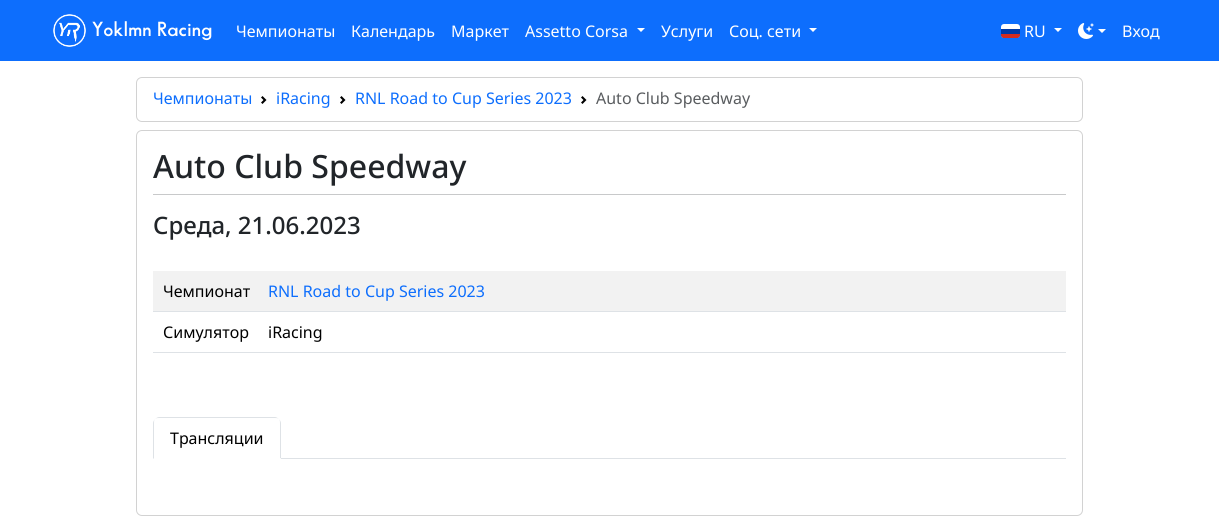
import math
import cairo


def round_path(ctx, x, y, w, h, r):
	ctx.new_sub_path()
	for i, (u, v) in enumerate([(x + w - r, y + h - r), (x + r, y + h - r), (x + r, y + r), (x + w - r, y + r)]):
		ctx.arc(u, v, r, i * math.pi / 2, (i + 1) * math.pi / 2)
	ctx.close_path()

def paste(ctx, path, x, y, w, h):
	ctx.save()
	ctx.set_source_surface(cairo.ImageSurface.create_from_png(path), x, y)
	ctx.rectangle(x, y, w, h)
	ctx.fill()
	ctx.restore()

def draw(ctx):
	ctx.set_source_rgb(1, 1, 1)
	ctx.paint()
	ctx.set_source_rgb(0.051, 0.431, 0.992)
	ctx.rectangle(0, 0, 1219, 61)
	ctx.fill()
	paste(ctx, 'media/1.png', 53, 14, 33, 33)
	ctx.select_font_face('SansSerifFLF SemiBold')
	ctx.set_font_size(20)
	ctx.set_source_rgb(1, 1, 1)
	ctx.move_to(92, 36)
	ctx.show_text('Yoklmn Racing')
	ctx.select_font_face('Noto Sans')
	ctx.set_font_size(16)
	for x, y, s in [
		(236, 37, 'Чемпионаты'),
		(351, 37, 'Календарь'),
		(451, 37, 'Маркет'),
		(525, 37, 'Assetto Corsa'),
	]:
		ctx.move_to(x, y)
		ctx.show_text(s)
	ctx.new_path()
	ctx.move_to(637, 28)
	ctx.line_to(645, 28)
	ctx.line_to(641, 32)
	ctx.close_path()
	ctx.fill()
	ctx.move_to(661, 37)
	ctx.show_text('Услуги')
	ctx.move_to(729, 37)
	ctx.show_text('Соц. сети')
	ctx.new_path()
	ctx.move_to(809, 28)
	ctx.line_to(817, 28)
	ctx.line_to(813, 32)
	ctx.close_path()
	ctx.fill()
	round_path(ctx, 1001, 24, 19, 14, 3)
	ctx.fill()
	ctx.move_to(1024, 37)
	ctx.show_text('RU')
	ctx.new_path()
	ctx.move_to(1054, 28)
	ctx.line_to(1062, 28)
	ctx.line_to(1058, 32)
	ctx.close_path()
	ctx.move_to(1098, 29)
	ctx.line_to(1106, 29)
	ctx.line_to(1102, 33)
	ctx.close_path()
	ctx.fill()
	ctx.set_source_rgb(0, 0.224, 0.651)
	ctx.new_path()
	ctx.move_to(1001, 29)
	ctx.line_to(1020, 29)
	ctx.line_to(1020, 35)
	ctx.curve_to(1020, 36.5, 1018.5, 38, 1017, 38)
	ctx.line_to(1004, 38)
	ctx.curve_to(1002.5, 38, 1001, 36.5, 1001, 35)
	ctx.close_path()
	ctx.fill()
	ctx.set_source_rgb(0.835, 0.169, 0.118)
	ctx.new_path()
	ctx.move_to(1001, 34)
	ctx.line_to(1020, 34)
	ctx.line_to(1020, 35)
	ctx.curve_to(1020, 36.5, 1018.5, 38, 1017, 38)
	ctx.line_to(1004, 38)
	ctx.curve_to(1002.5, 38, 1001, 36.5, 1001, 35)
	ctx.close_path()
	ctx.fill()
	paste(ctx, 'media/2.png', 1078, 23, 16, 16)
	ctx.set_source_rgb(1, 1, 1)
	ctx.move_to(1122, 37)
	ctx.show_text('Вход')
	round_path(ctx, 136.5, 77.5, 946, 44, 5.5)
	ctx.set_source_rgb(0.824, 0.824, 0.824)
	ctx.set_line_width(1)
	ctx.stroke()
	ctx.set_source_rgb(0.051, 0.431, 0.992)
	ctx.move_to(153, 104)
	ctx.show_text('Чемпионаты')
	paste(ctx, 'media/3.png', 261, 96, 6, 8)
	ctx.move_to(276, 104)
	ctx.show_text('iRacing')
	paste(ctx, 'media/3.png', 340, 96, 6, 8)
	ctx.move_to(355, 104)
	ctx.show_text('RNL Road to Cup Series 2023')
	paste(ctx, 'media/3.png', 581, 96, 6, 8)
	ctx.set_source_rgb(0.349, 0.361, 0.373)
	ctx.move_to(596, 104)
	ctx.show_text('Auto Club Speedway')
	round_path(ctx, 136.5, 130.5, 946, 385, 5.5)
	ctx.set_source_rgb(0.824, 0.824, 0.824)
	ctx.stroke()
	ctx.select_font_face('Noto Sans Medium')
	ctx.set_font_size(32)
	ctx.set_source_rgb(0.129, 0.145, 0.161)
	ctx.move_to(153, 178)
	ctx.show_text('Auto Club Speedway')
	ctx.set_source_rgb(0.784, 0.788, 0.792)
	ctx.rectangle(153, 194, 913, 1)
	ctx.fill()
	ctx.set_font_size(24)
	ctx.set_source_rgb(0.129, 0.145, 0.161)
	ctx.move_to(153, 234)
	ctx.show_text('Среда, 21.06.2023')
	ctx.set_source_rgb(0.949, 0.949, 0.949)
	ctx.rectangle(153, 271, 913, 40)
	ctx.fill()
	ctx.select_font_face('Noto Sans')
	ctx.set_font_size(16)
	ctx.set_source_rgb(0, 0, 0)
	ctx.move_to(163, 297)
	ctx.show_text('Чемпионат')
	ctx.set_source_rgb(0.871, 0.886, 0.902)
	ctx.rectangle(153, 311, 913, 1)
	ctx.fill()
	ctx.set_source_rgb(0.051, 0.431, 0.992)
	ctx.move_to(268, 297)
	ctx.show_text('RNL Road to Cup Series 2023')
	ctx.set_source_rgb(0, 0, 0)
	ctx.move_to(163, 338)
	ctx.show_text('Симулятор')
	ctx.set_source_rgb(0.871, 0.886, 0.902)
	ctx.rectangle(153, 352, 913, 1)
	ctx.fill()
	ctx.set_source_rgb(0, 0, 0)
	ctx.move_to(268, 338)
	ctx.show_text('iRacing')
	ctx.set_source_rgb(0.871, 0.886, 0.902)
	ctx.rectangle(281, 458, 785, 1)
	ctx.fill()
	ctx.new_path()
	ctx.move_to(159, 417)
	ctx.curve_to(158, 417, 156, 418, 155, 419)
	ctx.curve_to(156, 418, 158, 418, 159, 418)
	ctx.line_to(275, 418)
	ctx.curve_to(276, 418, 278, 418, 279, 419)
	ctx.curve_to(278, 418, 276, 417, 275, 417)
	ctx.close_path()
	ctx.fill()
	ctx.new_path()
	ctx.move_to(281, 459)
	ctx.line_to(281, 423)
	ctx.curve_to(281, 422, 280, 420, 279, 419)
	ctx.curve_to(280, 420, 280, 422, 280, 423)
	ctx.line_to(280, 458)
	ctx.close_path()
	ctx.fill()
	ctx.set_source_rgb(1, 1, 1)
	ctx.new_path()
	ctx.move_to(281, 459)
	ctx.line_to(280, 458)
	ctx.line_to(154, 458)
	ctx.line_to(153, 459)
	ctx.close_path()
	ctx.fill()
	ctx.set_source_rgb(0.871, 0.886, 0.902)
	ctx.new_path()
	ctx.move_to(153, 459)
	ctx.line_to(154, 458)
	ctx.line_to(154, 423)
	ctx.curve_to(154, 422, 154, 420, 155, 419)
	ctx.curve_to(154, 420, 153, 422, 153, 423)
	ctx.close_path()
	ctx.fill()
	ctx.set_source_rgb(0, 0, 0)
	ctx.move_to(170, 444)
	ctx.show_text('Трансляции')


surface = cairo.ImageSurface(cairo.FORMAT_RGB24, 1219, 532)
ctx = cairo.Context(surface)
options = cairo.FontOptions()
options.set_hint_metrics(cairo.HINT_METRICS_OFF)
options.set_hint_style(cairo.HINT_STYLE_NONE)
ctx.set_font_options(options)
ctx.set_miter_limit(4)
draw(ctx)
surface.write_to_png('image.png')
